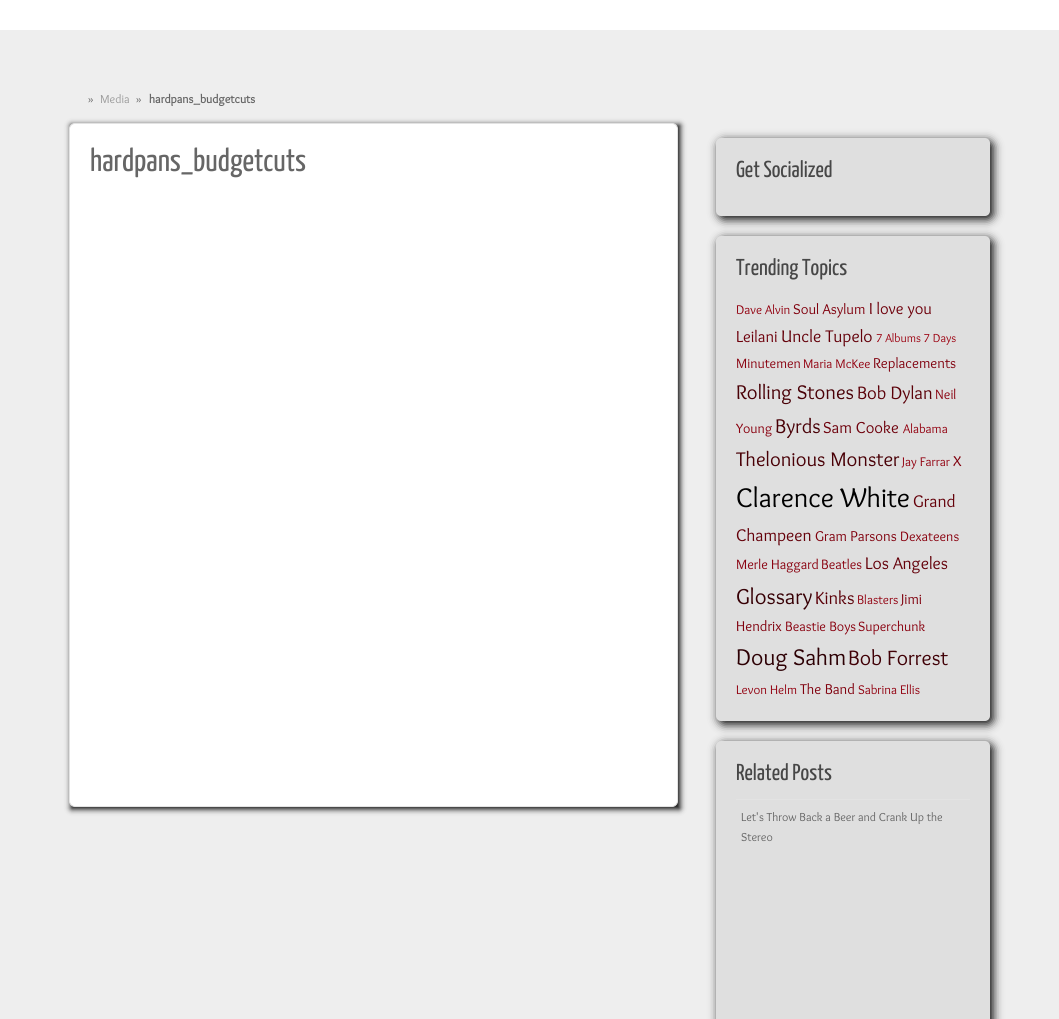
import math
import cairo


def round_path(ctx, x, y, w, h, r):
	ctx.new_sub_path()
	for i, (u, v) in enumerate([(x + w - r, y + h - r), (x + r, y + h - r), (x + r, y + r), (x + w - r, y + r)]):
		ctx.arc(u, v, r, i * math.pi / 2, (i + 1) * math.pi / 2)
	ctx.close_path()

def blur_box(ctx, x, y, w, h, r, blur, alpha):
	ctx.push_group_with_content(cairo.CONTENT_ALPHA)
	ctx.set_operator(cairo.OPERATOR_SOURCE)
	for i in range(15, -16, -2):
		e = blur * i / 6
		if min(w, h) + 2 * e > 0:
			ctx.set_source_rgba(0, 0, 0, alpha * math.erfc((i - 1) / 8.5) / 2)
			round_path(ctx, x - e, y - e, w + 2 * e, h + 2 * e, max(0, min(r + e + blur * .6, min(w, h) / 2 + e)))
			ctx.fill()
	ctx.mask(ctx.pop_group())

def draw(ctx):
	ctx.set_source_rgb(1, 1, 1)
	ctx.paint()
	ctx.set_source_rgb(0.933, 0.933, 0.933)
	ctx.rectangle(0, 30, 1059, 989)
	ctx.fill()
	ctx.select_font_face('Overlock')
	ctx.set_font_size(12)
	ctx.set_source_rgb(0.4, 0.4, 0.4)
	ctx.move_to(88, 103)
	ctx.show_text('»')
	ctx.set_source_rgb(0.6, 0.6, 0.6)
	ctx.move_to(100, 103)
	ctx.show_text('Media')
	ctx.set_source_rgb(0.4, 0.4, 0.4)
	ctx.move_to(136, 103)
	ctx.show_text('»')
	ctx.select_font_face('Overlock', cairo.FONT_SLANT_NORMAL, cairo.FONT_WEIGHT_BOLD)
	ctx.move_to(149, 103)
	ctx.show_text('hardpans_budgetcuts')
	ctx.set_source_rgb(0, 0, 0)
	blur_box(ctx, 71, 125, 609, 684, 0, 3, 1)
	ctx.set_source_rgb(1, 1, 1)
	round_path(ctx, 69.5, 123.5, 608, 683, 5.5)
	ctx.fill_preserve()
	ctx.set_source_rgb(0.89, 0.89, 0.89)
	ctx.set_line_width(1)
	ctx.stroke()
	ctx.select_font_face('Yanone Kaffeesatz ExtraLight')
	ctx.set_font_size(32)
	ctx.set_source_rgb(0.4, 0.4, 0.4)
	ctx.move_to(90, 171)
	ctx.show_text('hardpans_budgetcuts')
	ctx.set_source_rgb(0, 0, 0)
	blur_box(ctx, 719, 141, 274, 78, 5, 5, 1)
	ctx.set_source_rgb(0.875, 0.875, 0.875)
	round_path(ctx, 716, 138, 274, 78, 5)
	ctx.fill()
	ctx.set_font_size(23)
	ctx.set_source_rgb(0.278, 0.278, 0.278)
	ctx.move_to(736, 177)
	ctx.show_text('Get Socialized')
	ctx.set_source_rgb(0, 0, 0)
	blur_box(ctx, 719, 239, 274, 485, 5, 5, 1)
	ctx.set_source_rgb(0.875, 0.875, 0.875)
	round_path(ctx, 716, 236, 274, 485, 5)
	ctx.fill()
	ctx.set_source_rgb(0.278, 0.278, 0.278)
	ctx.move_to(736, 275)
	ctx.show_text('Trending Topics')
	ctx.select_font_face('Overlock')
	ctx.set_font_size(13)
	ctx.set_source_rgb(0.573, 0, 0.059)
	ctx.move_to(736, 314)
	ctx.show_text('Dave Alvin')
	ctx.set_font_size(14.75)
	ctx.set_source_rgb(0.502, 0, 0.051)
	ctx.move_to(793, 314)
	ctx.show_text('Soul Asylum')
	ctx.set_font_size(16.5)
	ctx.set_source_rgb(0.431, 0, 0.043)
	ctx.move_to(869, 314)
	ctx.show_text('I love you')
	ctx.move_to(736, 342)
	ctx.show_text('Leilani')
	ctx.set_font_size(17.5)
	ctx.set_source_rgb(0.392, 0, 0.039)
	ctx.move_to(781, 342)
	ctx.show_text('Uncle Tupelo')
	ctx.set_font_size(12)
	ctx.set_source_rgb(0.612, 0.004, 0.063)
	ctx.move_to(876, 342)
	ctx.show_text('7 Albums 7 Days')
	ctx.set_font_size(14)
	ctx.set_source_rgb(0.537, 0, 0.055)
	ctx.move_to(736, 368)
	ctx.show_text('Minutemen')
	ctx.set_font_size(13)
	ctx.set_source_rgb(0.573, 0, 0.059)
	ctx.move_to(803, 368)
	ctx.show_text('Maria McKee')
	ctx.set_font_size(14.75)
	ctx.set_source_rgb(0.502, 0, 0.051)
	ctx.move_to(873, 368)
	ctx.show_text('Replacements')
	ctx.set_font_size(20.5)
	ctx.set_source_rgb(0.286, 0, 0.027)
	ctx.move_to(736, 399)
	ctx.show_text('Rolling Stones')
	ctx.set_font_size(18.5)
	ctx.set_source_rgb(0.357, 0, 0.035)
	ctx.move_to(857, 399)
	ctx.show_text('Bob Dylan')
	ctx.set_font_size(14)
	ctx.set_source_rgb(0.537, 0, 0.055)
	ctx.move_to(935, 399)
	ctx.show_text('Neil')
	ctx.move_to(736, 433)
	ctx.show_text('Young')
	ctx.set_font_size(20.5)
	ctx.set_source_rgb(0.286, 0, 0.027)
	ctx.move_to(775, 433)
	ctx.show_text('Byrds')
	ctx.set_font_size(16.5)
	ctx.set_source_rgb(0.431, 0, 0.043)
	ctx.move_to(823, 433)
	ctx.show_text('Sam Cooke')
	ctx.set_font_size(13)
	ctx.set_source_rgb(0.573, 0, 0.059)
	ctx.move_to(903, 433)
	ctx.show_text('Alabama')
	ctx.set_font_size(20.5)
	ctx.set_source_rgb(0.286, 0, 0.027)
	ctx.move_to(736, 466)
	ctx.show_text('Thelonious Monster')
	ctx.set_font_size(13)
	ctx.set_source_rgb(0.573, 0, 0.059)
	ctx.move_to(902, 466)
	ctx.show_text('Jay Farrar')
	ctx.set_font_size(14.75)
	ctx.set_source_rgb(0.502, 0, 0.051)
	ctx.move_to(953, 466)
	ctx.show_text('X')
	ctx.set_font_size(28)
	ctx.set_source_rgb(0, 0, 0)
	ctx.move_to(736, 507)
	ctx.show_text('Clarence White')
	ctx.set_font_size(17.5)
	ctx.set_source_rgb(0.392, 0, 0.039)
	ctx.move_to(913, 507)
	ctx.show_text('Grand')
	ctx.move_to(736, 541)
	ctx.show_text('Champeen')
	ctx.set_font_size(14.75)
	ctx.set_source_rgb(0.502, 0, 0.051)
	ctx.move_to(815, 541)
	ctx.show_text('Gram Parsons')
	ctx.set_font_size(14)
	ctx.set_source_rgb(0.537, 0, 0.055)
	for x, y, s in [
		(900, 541, 'Dexateens'),
		(736, 569, 'Merle Haggard'),
		(821, 569, 'Beatles'),
	]:
		ctx.move_to(x, y)
		ctx.show_text(s)
	ctx.set_font_size(17.5)
	ctx.set_source_rgb(0.392, 0, 0.039)
	ctx.move_to(865, 569)
	ctx.show_text('Los Angeles')
	ctx.set_font_size(22.5)
	ctx.set_source_rgb(0.216, 0, 0.02)
	ctx.move_to(736, 604)
	ctx.show_text('Glossary')
	ctx.set_font_size(18.5)
	ctx.set_source_rgb(0.357, 0, 0.035)
	ctx.move_to(815, 604)
	ctx.show_text('Kinks')
	ctx.set_font_size(13)
	ctx.set_source_rgb(0.573, 0, 0.059)
	ctx.move_to(857, 604)
	ctx.show_text('Blasters')
	ctx.set_font_size(14.75)
	ctx.set_source_rgb(0.502, 0, 0.051)
	ctx.move_to(901, 604)
	ctx.show_text('Jimi')
	ctx.move_to(736, 631)
	ctx.show_text('Hendrix')
	ctx.set_font_size(14)
	ctx.set_source_rgb(0.537, 0, 0.055)
	ctx.move_to(785, 631)
	ctx.show_text('Beastie Boys')
	ctx.move_to(858, 631)
	ctx.show_text('Superchunk')
	ctx.set_font_size(23.5)
	ctx.set_source_rgb(0.176, 0, 0.016)
	ctx.move_to(736, 665)
	ctx.show_text('Doug Sahm')
	ctx.set_font_size(21.5)
	ctx.set_source_rgb(0.251, 0, 0.024)
	ctx.move_to(848, 665)
	ctx.show_text('Bob Forrest')
	ctx.set_font_size(13)
	ctx.set_source_rgb(0.573, 0, 0.059)
	ctx.move_to(736, 694)
	ctx.show_text('Levon Helm')
	ctx.set_font_size(14.75)
	ctx.set_source_rgb(0.502, 0, 0.051)
	ctx.move_to(800, 694)
	ctx.show_text('The Band')
	ctx.set_font_size(13)
	ctx.set_source_rgb(0.573, 0, 0.059)
	ctx.move_to(858, 694)
	ctx.show_text('Sabrina Ellis')
	ctx.set_source_rgb(0, 0, 0)
	blur_box(ctx, 719, 744, 274, 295, 5, 5, 1)
	ctx.set_source_rgb(0.875, 0.875, 0.875)
	round_path(ctx, 716, 741, 274, 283, 5)
	ctx.fill()
	ctx.select_font_face('Yanone Kaffeesatz ExtraLight')
	ctx.set_font_size(23)
	ctx.set_source_rgb(0.278, 0.278, 0.278)
	ctx.move_to(736, 780)
	ctx.show_text('Related Posts')
	ctx.set_source_rgb(0.89, 0.89, 0.89)
	ctx.rectangle(736, 799, 234, 1)
	ctx.fill()
	ctx.select_font_face('Overlock')
	ctx.set_font_size(12)
	ctx.set_source_rgb(0.4, 0.4, 0.4)
	ctx.move_to(741, 821)
	ctx.show_text('Let\'s Throw Back a Beer and Crank Up the')
	ctx.move_to(741, 841)
	ctx.show_text('Stereo')


surface = cairo.ImageSurface(cairo.FORMAT_RGB24, 1059, 1019)
ctx = cairo.Context(surface)
options = cairo.FontOptions()
options.set_hint_metrics(cairo.HINT_METRICS_OFF)
options.set_hint_style(cairo.HINT_STYLE_NONE)
ctx.set_font_options(options)
ctx.set_miter_limit(4)
draw(ctx)
surface.write_to_png('image.png')
